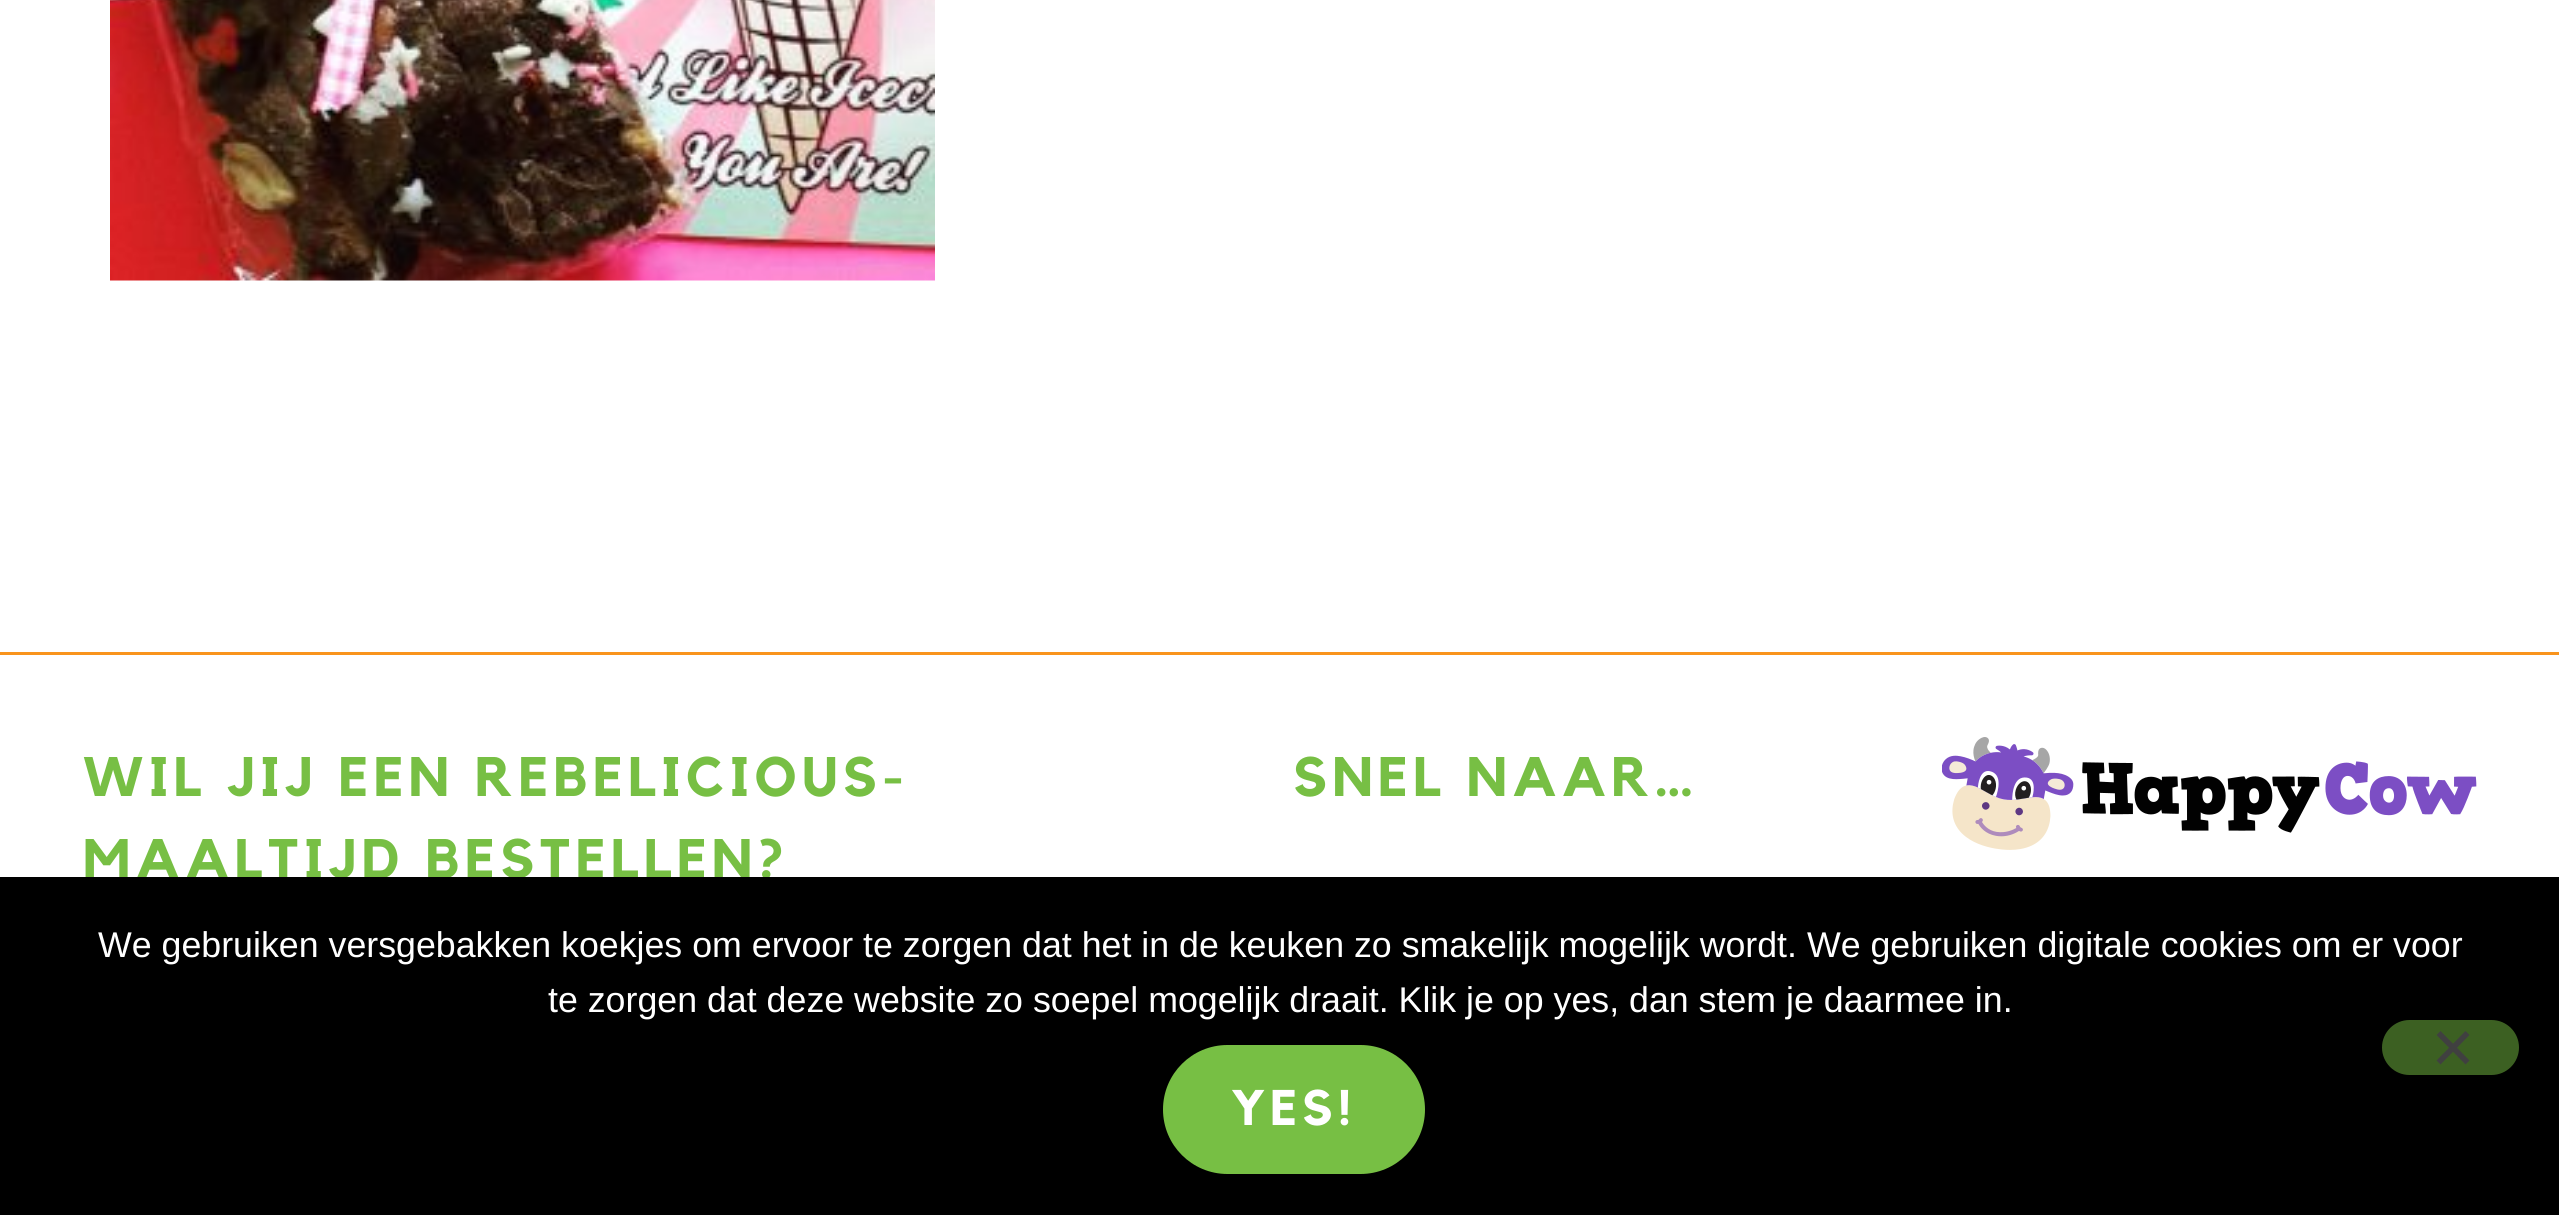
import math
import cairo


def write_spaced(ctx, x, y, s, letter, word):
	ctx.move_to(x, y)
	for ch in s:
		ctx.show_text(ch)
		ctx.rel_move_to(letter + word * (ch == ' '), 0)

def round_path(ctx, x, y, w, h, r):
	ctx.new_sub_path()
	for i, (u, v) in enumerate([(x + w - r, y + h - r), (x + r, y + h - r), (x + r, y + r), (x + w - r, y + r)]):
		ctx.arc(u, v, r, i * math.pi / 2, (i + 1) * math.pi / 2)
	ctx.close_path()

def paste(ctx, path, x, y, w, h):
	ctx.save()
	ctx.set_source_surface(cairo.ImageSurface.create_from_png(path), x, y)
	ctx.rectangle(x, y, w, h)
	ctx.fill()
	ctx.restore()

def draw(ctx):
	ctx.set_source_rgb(1, 1, 1)
	ctx.paint()
	paste(ctx, 'media/1.png', 110, 0, 825, 281)
	ctx.set_source_rgb(0.973, 0.58, 0.114)
	ctx.rectangle(0, 652, 2559, 3)
	ctx.fill()
	ctx.select_font_face('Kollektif', cairo.FONT_SLANT_NORMAL, cairo.FONT_WEIGHT_BOLD)
	ctx.set_font_size(55)
	ctx.set_source_rgb(0.467, 0.749, 0.267)
	for x, y, s in [
		(83, 796, 'WIL JIJ EEN REBELICIOUS-'),
		(83, 878, 'MAALTIJD BESTELLEN?'),
		(1293, 796, 'SNEL NAAR…'),
	]:
		write_spaced(ctx, x, y, s, 5.5, 0)
	paste(ctx, 'media/2.png', 1942, 737, 535, 113)
	ctx.set_source_rgb(0, 0, 0)
	ctx.rectangle(0, 877, 2559, 338)
	ctx.fill()
	ctx.select_font_face('Liberation Sans')
	ctx.set_font_size(35.75)
	ctx.set_source_rgb(1, 1, 1)
	ctx.move_to(98, 957)
	ctx.show_text('We gebruiken versgebakken koekjes om ervoor te zorgen dat het in de keuken zo smakelijk mogelijk wordt. We gebruiken digitale cookies om er voor')
	ctx.move_to(548, 1012)
	ctx.show_text('te zorgen dat deze website zo soepel mogelijk draait. Klik je op yes, dan stem je daarmee in.')
	ctx.set_source_rgb(0.235, 0.376, 0.133)
	round_path(ctx, 2382, 1020, 137, 55, 27.5)
	ctx.fill()
	ctx.set_source_rgb(0.251, 0.251, 0.251)
	ctx.new_path()
	ctx.move_to(2465.5, 1031)
	ctx.line_to(2469.5, 1035)
	ctx.line_to(2440.5, 1064.5)
	ctx.line_to(2436.5, 1060.5)
	ctx.close_path()
	ctx.fill()
	ctx.new_path()
	ctx.move_to(2436.5, 1035)
	ctx.line_to(2440.5, 1031)
	ctx.line_to(2469.5, 1060.5)
	ctx.line_to(2465.5, 1064.5)
	ctx.close_path()
	ctx.fill()
	ctx.set_source_rgb(0.467, 0.749, 0.267)
	round_path(ctx, 1163, 1045, 262, 129, 64.5)
	ctx.fill()
	ctx.select_font_face('Kollektif', cairo.FONT_SLANT_NORMAL, cairo.FONT_WEIGHT_BOLD)
	ctx.set_font_size(49.5)
	ctx.set_source_rgb(1, 1, 1)
	write_spaced(ctx, 1231, 1125, 'YES!', 5, 0)


surface = cairo.ImageSurface(cairo.FORMAT_RGB24, 2559, 1215)
ctx = cairo.Context(surface)
options = cairo.FontOptions()
options.set_hint_metrics(cairo.HINT_METRICS_OFF)
options.set_hint_style(cairo.HINT_STYLE_NONE)
ctx.set_font_options(options)
ctx.set_miter_limit(4)
draw(ctx)
surface.write_to_png('image.png')
